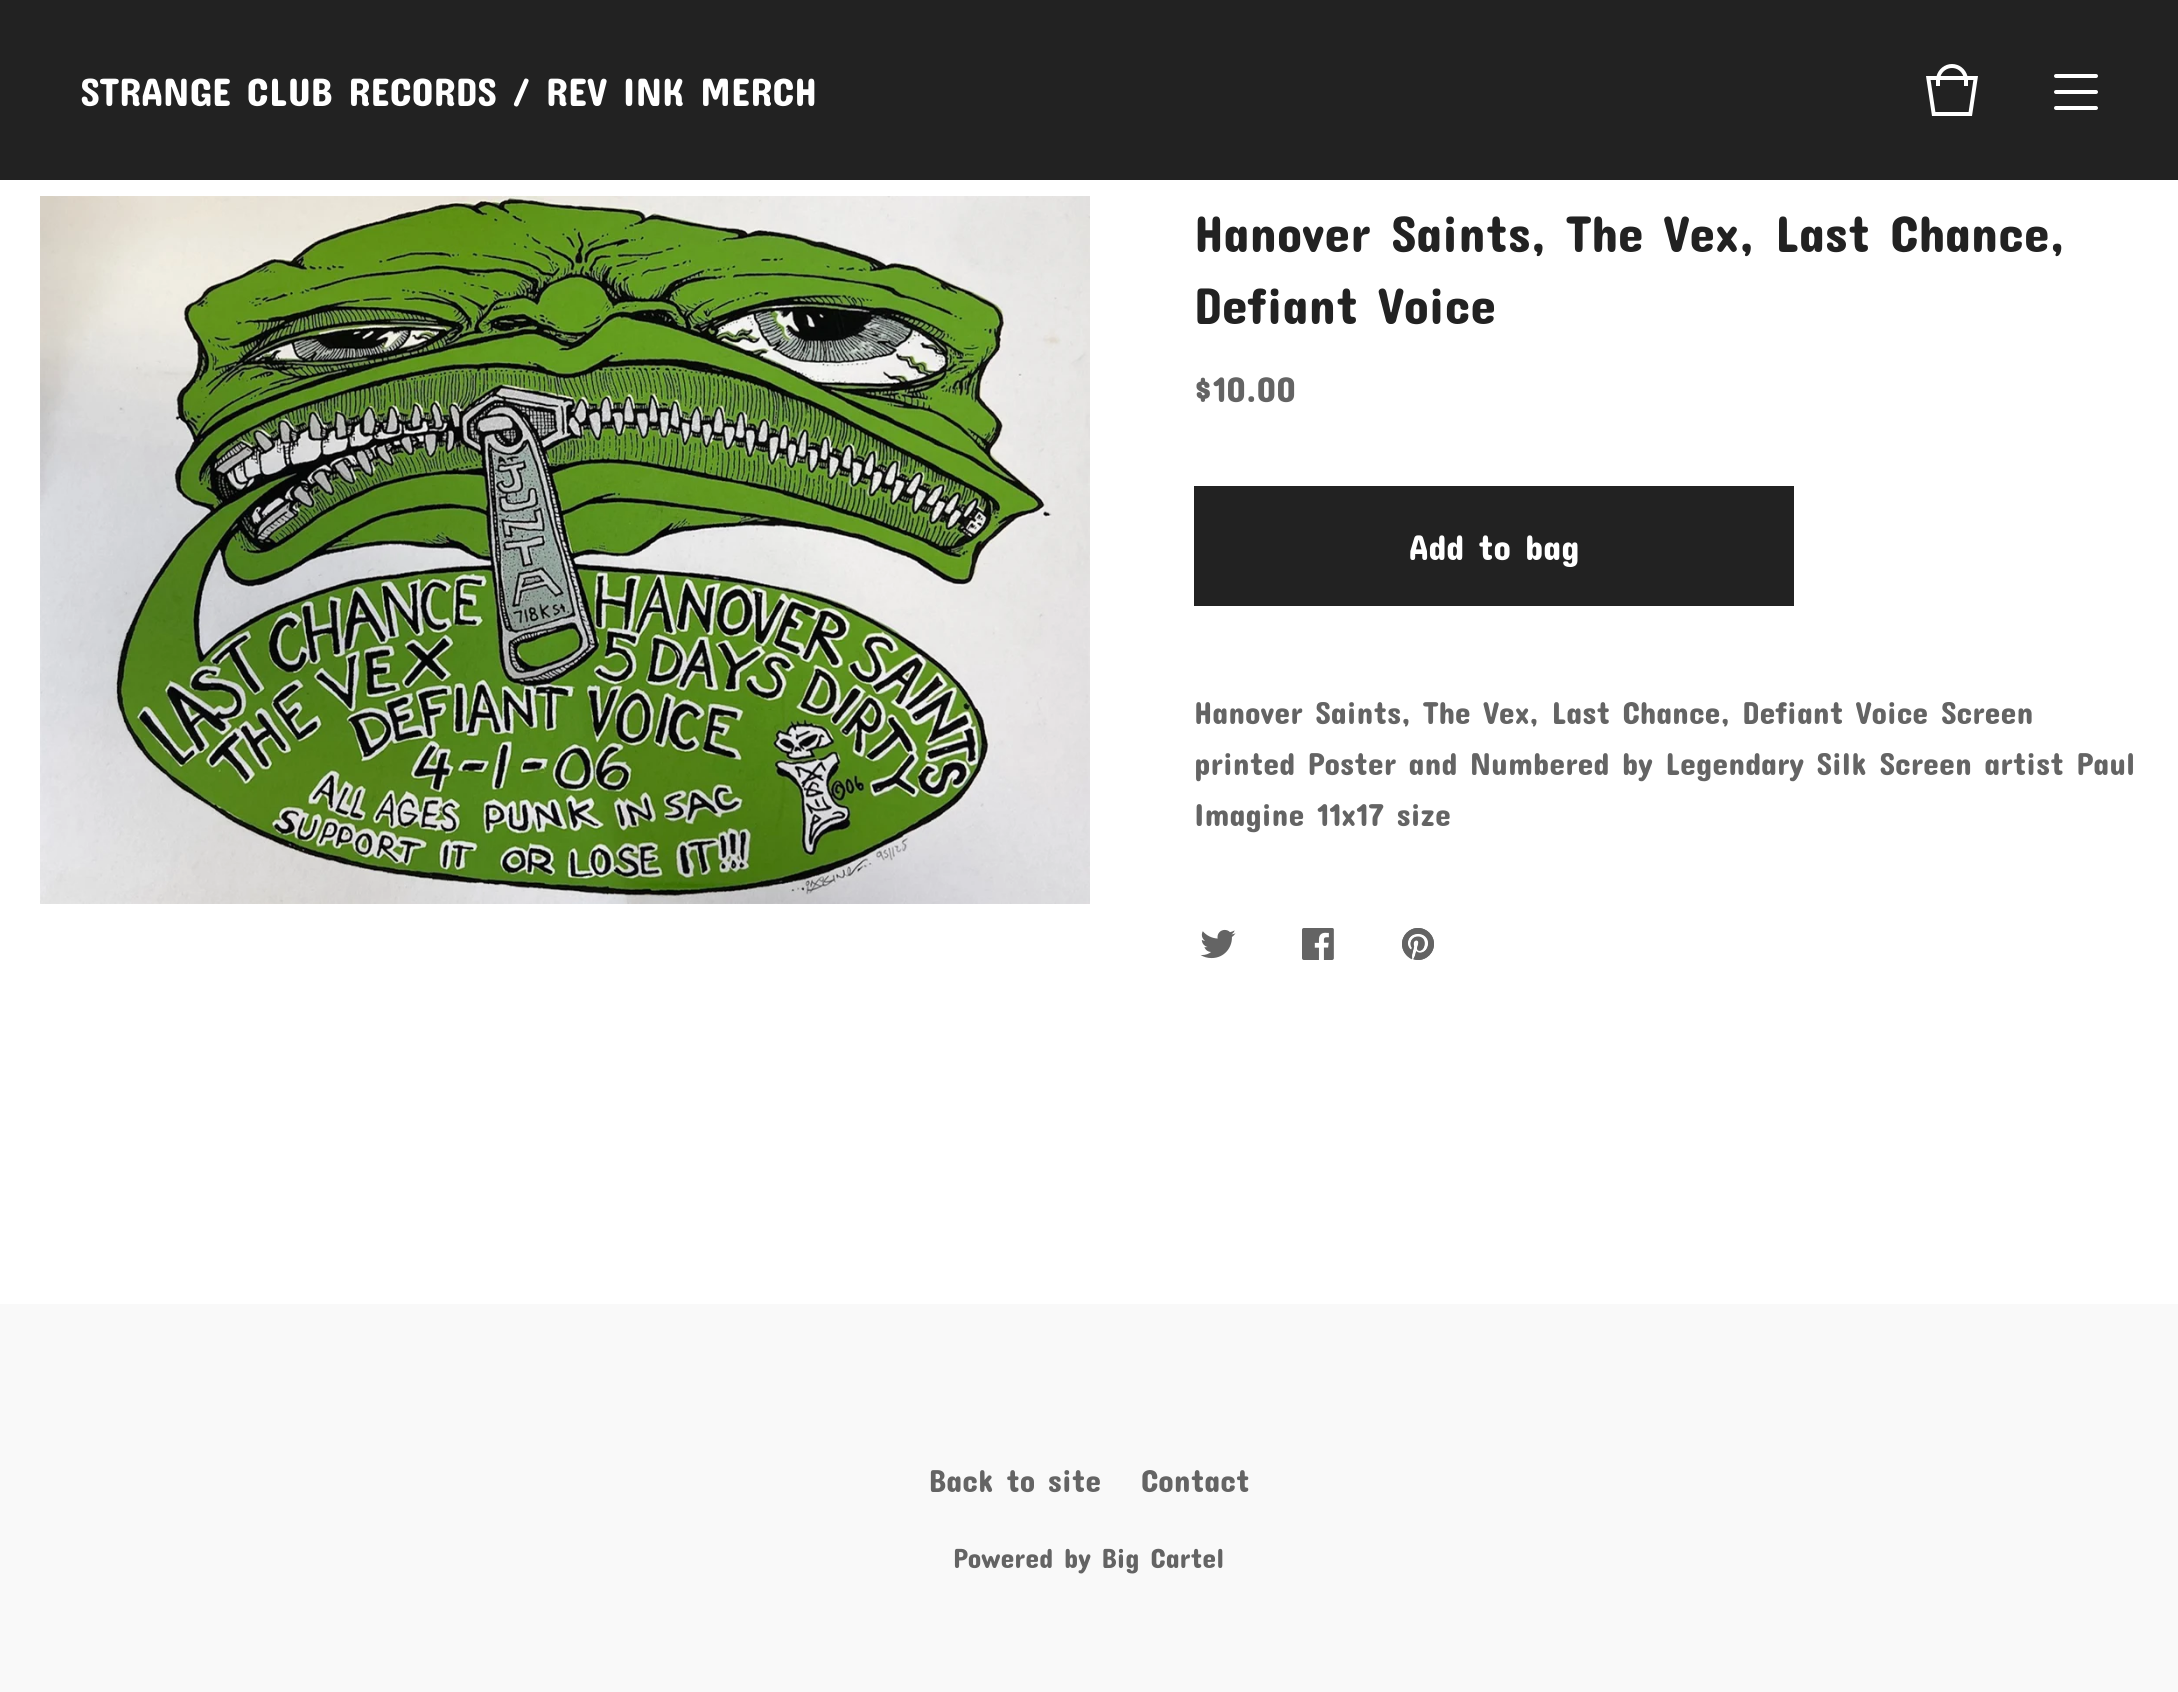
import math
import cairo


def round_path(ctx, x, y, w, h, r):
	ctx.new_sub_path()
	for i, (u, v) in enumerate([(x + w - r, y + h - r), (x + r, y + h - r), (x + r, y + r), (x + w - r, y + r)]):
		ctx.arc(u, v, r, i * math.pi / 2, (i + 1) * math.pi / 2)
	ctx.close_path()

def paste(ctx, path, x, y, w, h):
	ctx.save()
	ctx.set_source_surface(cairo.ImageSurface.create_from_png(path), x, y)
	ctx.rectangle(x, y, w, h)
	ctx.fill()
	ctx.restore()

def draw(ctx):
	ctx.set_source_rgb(1, 1, 1)
	ctx.paint()
	ctx.set_source_rgb(0.133, 0.133, 0.133)
	ctx.rectangle(0, 0, 2178, 180)
	ctx.fill()
	ctx.select_font_face('Concert One')
	ctx.set_font_size(40)
	ctx.set_source_rgb(1, 1, 1)
	ctx.move_to(80, 106)
	ctx.show_text('STRANGE CLUB RECORDS / REV INK MERCH')
	paste(ctx, 'media/1.png', 1926, 64, 52, 52)
	round_path(ctx, 2054, 74, 44, 4, 2)
	ctx.fill()
	round_path(ctx, 2054, 90, 44, 4, 2)
	ctx.fill()
	round_path(ctx, 2054, 106, 44, 4, 2)
	ctx.fill()
	paste(ctx, 'media/2.png', 40, 196, 1050, 708)
	ctx.set_font_size(52)
	ctx.set_source_rgb(0.133, 0.133, 0.133)
	ctx.move_to(1194, 252)
	ctx.show_text('Hanover Saints, The Vex, Last Chance,')
	ctx.move_to(1194, 324)
	ctx.show_text('Defiant Voice')
	ctx.set_font_size(36)
	ctx.set_source_rgb(0.392, 0.392, 0.392)
	ctx.move_to(1194, 402)
	ctx.show_text('$10.00')
	ctx.set_source_rgb(0.133, 0.133, 0.133)
	ctx.rectangle(1194, 486, 600, 120)
	ctx.fill()
	ctx.set_source_rgb(1, 1, 1)
	ctx.move_to(1409, 560)
	ctx.show_text('Add to bag')
	ctx.set_font_size(32)
	ctx.set_source_rgb(0.392, 0.392, 0.392)
	for x, y, s in [
		(1194, 724, 'Hanover Saints, The Vex, Last Chance, Defiant Voice Screen'),
		(1194, 775, 'printed Poster and Numbered by Legendary Silk Screen artist Paul'),
		(1194, 826, 'Imagine 11x17 size'),
	]:
		ctx.move_to(x, y)
		ctx.show_text(s)
	paste(ctx, 'media/3.png', 1200, 929, 36, 30)
	paste(ctx, 'media/4.png', 1302, 928, 32, 32)
	paste(ctx, 'media/5.png', 1402, 928, 32, 32)
	ctx.set_source_rgb(0.976, 0.976, 0.976)
	ctx.rectangle(0, 1304, 2178, 388)
	ctx.fill()
	ctx.set_source_rgb(0.392, 0.392, 0.392)
	ctx.move_to(929, 1492)
	ctx.show_text('Back to site')
	ctx.move_to(1141, 1492)
	ctx.show_text('Contact')
	ctx.set_font_size(28)
	ctx.move_to(953, 1568)
	ctx.show_text('Powered by Big Cartel')


surface = cairo.ImageSurface(cairo.FORMAT_RGB24, 2178, 1692)
ctx = cairo.Context(surface)
options = cairo.FontOptions()
options.set_hint_metrics(cairo.HINT_METRICS_OFF)
options.set_hint_style(cairo.HINT_STYLE_NONE)
ctx.set_font_options(options)
ctx.set_miter_limit(4)
draw(ctx)
surface.write_to_png('image.png')
